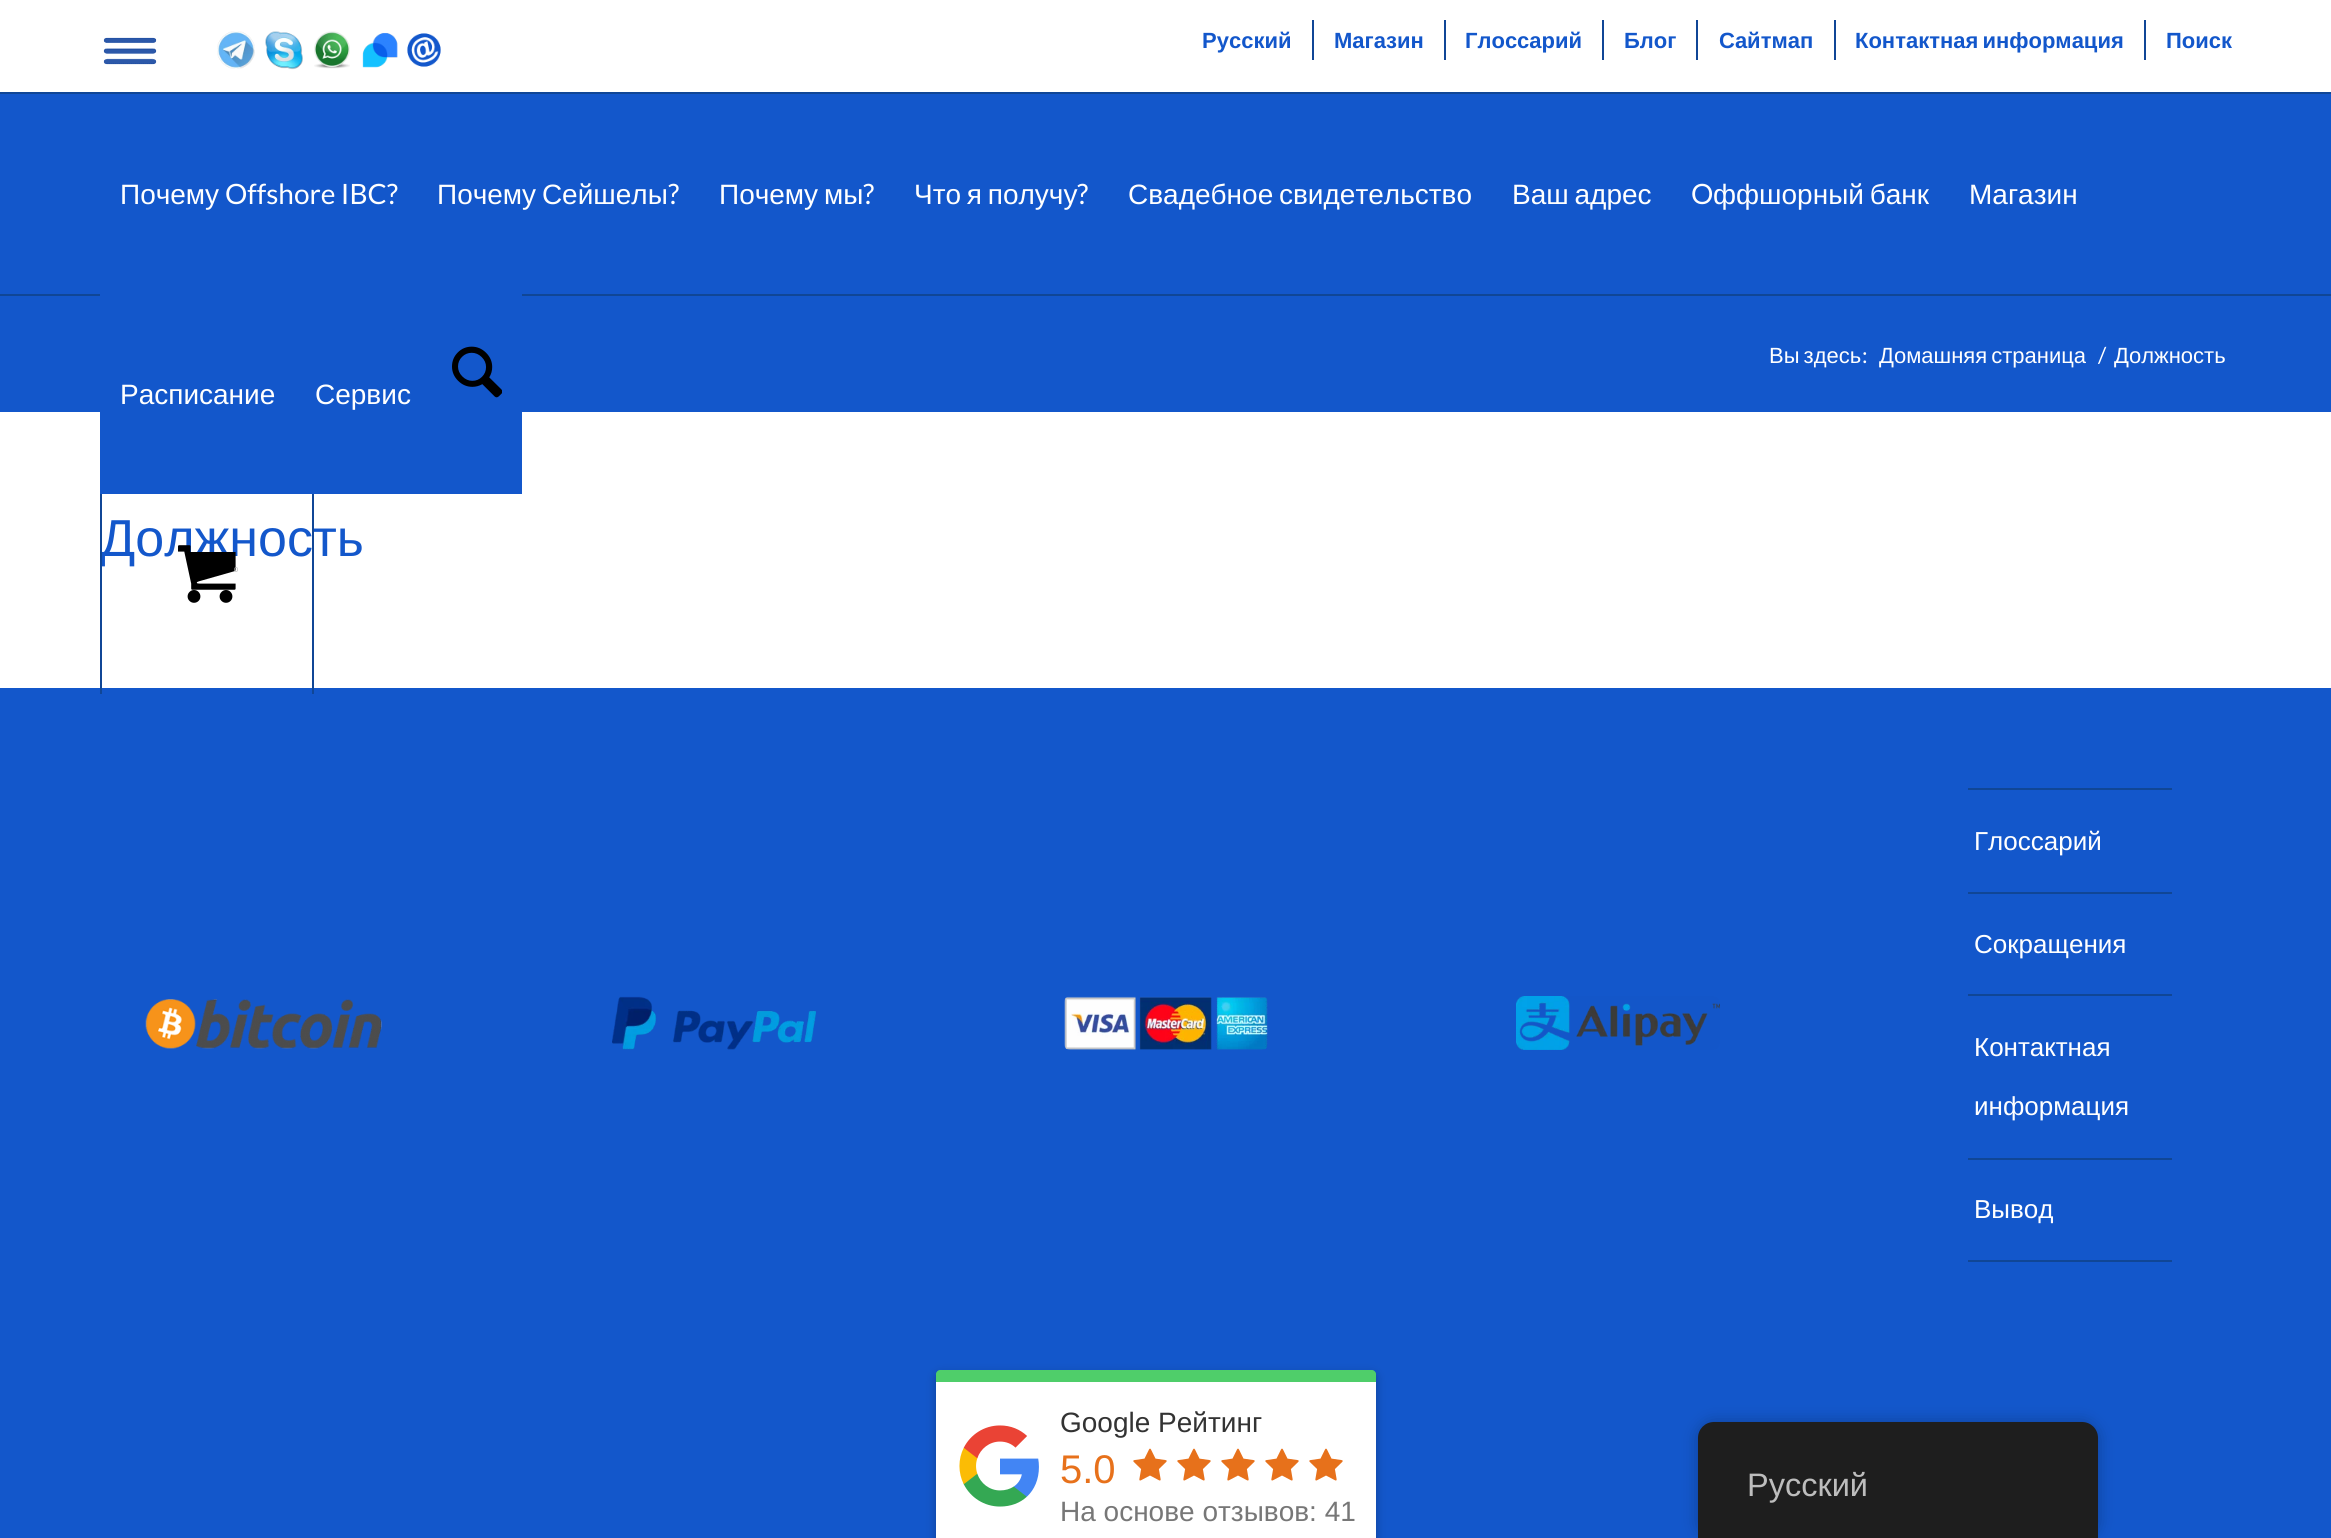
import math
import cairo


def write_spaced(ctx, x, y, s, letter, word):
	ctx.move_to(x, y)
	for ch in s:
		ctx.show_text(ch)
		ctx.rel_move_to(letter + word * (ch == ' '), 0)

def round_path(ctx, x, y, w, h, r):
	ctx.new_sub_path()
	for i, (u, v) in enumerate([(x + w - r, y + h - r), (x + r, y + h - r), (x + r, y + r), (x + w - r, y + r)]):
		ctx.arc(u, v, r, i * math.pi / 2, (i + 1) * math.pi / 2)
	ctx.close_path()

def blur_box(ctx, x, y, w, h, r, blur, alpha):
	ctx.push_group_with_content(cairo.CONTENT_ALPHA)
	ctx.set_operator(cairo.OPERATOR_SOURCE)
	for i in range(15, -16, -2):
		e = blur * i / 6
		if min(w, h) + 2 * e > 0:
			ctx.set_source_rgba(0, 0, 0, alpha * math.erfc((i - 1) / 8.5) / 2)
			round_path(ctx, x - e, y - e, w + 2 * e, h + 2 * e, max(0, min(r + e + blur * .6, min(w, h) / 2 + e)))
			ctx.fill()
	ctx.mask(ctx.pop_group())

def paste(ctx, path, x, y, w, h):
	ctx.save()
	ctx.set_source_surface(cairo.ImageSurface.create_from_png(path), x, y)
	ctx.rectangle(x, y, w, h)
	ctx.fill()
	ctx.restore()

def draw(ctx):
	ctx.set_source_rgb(0.075, 0.341, 0.796)
	ctx.paint()
	ctx.set_source_rgb(1, 1, 1)
	ctx.rectangle(0, 0, 2331, 92)
	ctx.fill()
	ctx.set_source_rgb(0.063, 0.275, 0.588)
	ctx.rectangle(0, 92, 2331, 2)
	ctx.fill()
	paste(ctx, 'media/1.png', 103, 37, 54, 28)
	paste(ctx, 'media/2.png', 217, 31, 38, 38)
	paste(ctx, 'media/3.png', 265, 31, 38, 39)
	paste(ctx, 'media/4.png', 314, 31, 36, 38)
	paste(ctx, 'media/5.png', 362, 32, 36, 36)
	paste(ctx, 'media/6.png', 407, 33, 34, 34)
	ctx.rectangle(1312, 20, 2, 40)
	ctx.fill()
	ctx.select_font_face('Liberation Sans', cairo.FONT_SLANT_NORMAL, cairo.FONT_WEIGHT_BOLD)
	ctx.set_font_size(22)
	ctx.set_source_rgb(0.075, 0.341, 0.796)
	ctx.move_to(1202, 48)
	ctx.show_text('Русский')
	ctx.set_source_rgb(0.063, 0.275, 0.588)
	ctx.rectangle(1444, 20, 2, 40)
	ctx.fill()
	ctx.set_source_rgb(0.075, 0.341, 0.796)
	ctx.move_to(1334, 48)
	ctx.show_text('Магазин')
	ctx.set_source_rgb(0.063, 0.275, 0.588)
	ctx.rectangle(1602, 20, 2, 40)
	ctx.fill()
	ctx.set_source_rgb(0.075, 0.341, 0.796)
	ctx.move_to(1465, 48)
	ctx.show_text('Глоссарий')
	ctx.set_source_rgb(0.063, 0.275, 0.588)
	ctx.rectangle(1696, 20, 2, 40)
	ctx.fill()
	ctx.set_source_rgb(0.075, 0.341, 0.796)
	ctx.move_to(1624, 48)
	ctx.show_text('Блог')
	ctx.set_source_rgb(0.063, 0.275, 0.588)
	ctx.rectangle(1834, 20, 2, 40)
	ctx.fill()
	ctx.set_source_rgb(0.075, 0.341, 0.796)
	ctx.move_to(1719, 48)
	ctx.show_text('Сайтмап')
	ctx.set_source_rgb(0.063, 0.275, 0.588)
	ctx.rectangle(2144, 20, 2, 40)
	ctx.fill()
	ctx.set_source_rgb(0.075, 0.341, 0.796)
	write_spaced(ctx, 1855, 48, 'Контактная информация', 0, -2)
	ctx.move_to(2166, 48)
	ctx.show_text('Поиск')
	ctx.set_source_rgb(0.063, 0.275, 0.588)
	ctx.rectangle(0, 294, 2331, 2)
	ctx.fill()
	ctx.select_font_face('Liberation Sans')
	ctx.set_font_size(28)
	ctx.set_source_rgb(1, 1, 1)
	ctx.move_to(120, 204)
	ctx.show_text('Почему')
	ctx.select_font_face('Lato')
	ctx.move_to(225, 204)
	ctx.show_text('Offshore IBC?')
	ctx.select_font_face('Liberation Sans')
	write_spaced(ctx, 437, 204, 'Почему Сейшелы', 0, -2)
	ctx.select_font_face('Lato')
	ctx.move_to(668, 204)
	ctx.show_text('?')
	ctx.select_font_face('Liberation Sans')
	write_spaced(ctx, 719, 204, 'Почему мы', 0, -2)
	ctx.select_font_face('Lato')
	ctx.move_to(863, 204)
	ctx.show_text('?')
	ctx.select_font_face('Liberation Sans')
	write_spaced(ctx, 914, 204, 'Что я получу', 0, -2)
	ctx.select_font_face('Lato')
	ctx.move_to(1077, 204)
	ctx.show_text('?')
	ctx.select_font_face('Liberation Sans')
	write_spaced(ctx, 1128, 204, 'Свадебное свидетельство', 0, -2)
	write_spaced(ctx, 1512, 204, 'Ваш адрес', 0, -2)
	ctx.select_font_face('Lato')
	ctx.move_to(1691, 204)
	ctx.show_text('O')
	ctx.select_font_face('Liberation Sans')
	write_spaced(ctx, 1713, 204, 'ффшорный банк', 0, -2)
	ctx.move_to(1969, 204)
	ctx.show_text('Магазин')
	ctx.rectangle(0, 412, 2331, 276)
	ctx.fill()
	ctx.set_source_rgb(0.075, 0.341, 0.796)
	ctx.rectangle(100, 294, 422, 200)
	ctx.fill()
	ctx.set_source_rgb(1, 1, 1)
	ctx.move_to(120, 404)
	ctx.show_text('Расписание')
	ctx.move_to(315, 404)
	ctx.show_text('Сервис')
	paste(ctx, 'media/7.png', 452, 346, 50, 52)
	ctx.set_font_size(52)
	ctx.set_source_rgb(0.075, 0.341, 0.796)
	ctx.move_to(100, 556)
	ctx.show_text('Должность')
	ctx.set_source_rgb(0.063, 0.275, 0.588)
	ctx.rectangle(312, 494, 2, 200)
	ctx.fill()
	ctx.rectangle(100, 494, 2, 200)
	ctx.fill()
	paste(ctx, 'media/8.png', 178, 545, 58, 58)
	ctx.select_font_face('Lato')
	ctx.set_font_size(7)
	ctx.set_source_rgb(0.702, 0.702, 0.702)
	ctx.move_to(234, 572)
	ctx.show_text('0')
	ctx.select_font_face('Liberation Sans')
	ctx.set_font_size(22)
	ctx.set_source_rgb(1, 1, 1)
	write_spaced(ctx, 1769, 363, 'Вы здесь', 0, -2)
	ctx.select_font_face('Lato')
	ctx.move_to(1862, 363)
	ctx.show_text(':')
	ctx.select_font_face('Liberation Sans')
	write_spaced(ctx, 1879, 363, 'Домашняя страница', 0, -2)
	ctx.select_font_face('Lato')
	ctx.move_to(2098, 363)
	ctx.show_text('/')
	ctx.select_font_face('Liberation Sans')
	ctx.move_to(2114, 363)
	ctx.show_text('Должность')
	paste(ctx, 'media/9.png', 145, 999, 237, 50)
	paste(ctx, 'media/10.png', 612, 996, 204, 54)
	paste(ctx, 'media/11.png', 1064, 996, 204, 54)
	paste(ctx, 'media/12.png', 1516, 996, 204, 54)
	ctx.set_source_rgb(0.063, 0.275, 0.588)
	ctx.rectangle(1968, 788, 204, 2)
	ctx.fill()
	ctx.rectangle(1968, 892, 204, 2)
	ctx.fill()
	ctx.set_font_size(26)
	ctx.set_source_rgb(1, 1, 1)
	ctx.move_to(1974, 850)
	ctx.show_text('Глоссарий')
	ctx.set_source_rgb(0.063, 0.275, 0.588)
	ctx.rectangle(1968, 994, 204, 2)
	ctx.fill()
	ctx.set_source_rgb(1, 1, 1)
	ctx.move_to(1974, 953)
	ctx.show_text('Сокращения')
	ctx.set_source_rgb(0.063, 0.275, 0.588)
	ctx.rectangle(1968, 1158, 204, 2)
	ctx.fill()
	ctx.set_source_rgb(1, 1, 1)
	ctx.move_to(1974, 1056)
	ctx.show_text('Контактная')
	ctx.move_to(1974, 1115)
	ctx.show_text('информация')
	ctx.set_source_rgb(0.063, 0.275, 0.588)
	ctx.rectangle(1968, 1260, 204, 2)
	ctx.fill()
	ctx.set_source_rgb(1, 1, 1)
	ctx.move_to(1974, 1218)
	ctx.show_text('Вывод')
	ctx.set_source_rgb(0, 0, 0)
	blur_box(ctx, 936, 1374, 440, 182, 4, 5, 0.26)
	ctx.set_source_rgb(0.31, 0.808, 0.416)
	ctx.new_path()
	ctx.move_to(940, 1370)
	ctx.line_to(1372, 1370)
	ctx.curve_to(1374, 1370, 1376, 1372, 1376, 1374)
	ctx.line_to(1376, 1382)
	ctx.line_to(936, 1382)
	ctx.line_to(936, 1374)
	ctx.curve_to(936, 1372, 938, 1370, 940, 1370)
	ctx.close_path()
	ctx.fill()
	ctx.set_source_rgb(1, 1, 1)
	ctx.rectangle(936, 1382, 440, 156)
	ctx.fill()
	paste(ctx, 'media/13.png', 959, 1425, 80, 82)
	ctx.set_font_size(28)
	ctx.set_source_rgb(0.2, 0.2, 0.2)
	ctx.move_to(1060, 1432)
	ctx.show_text('Google Рейтинг')
	ctx.set_font_size(40)
	ctx.set_source_rgb(0.906, 0.443, 0.106)
	ctx.move_to(1060, 1483)
	ctx.show_text('5.0')
	paste(ctx, 'media/14.png', 1133, 1448, 34, 33)
	paste(ctx, 'media/14.png', 1177, 1448, 34, 33)
	paste(ctx, 'media/14.png', 1221, 1448, 34, 33)
	paste(ctx, 'media/14.png', 1265, 1448, 34, 33)
	paste(ctx, 'media/14.png', 1309, 1448, 34, 33)
	ctx.set_font_size(28)
	ctx.set_source_rgb(0.467, 0.467, 0.467)
	ctx.move_to(1060, 1521)
	ctx.show_text('На основе отзывов: 41')
	ctx.set_source_rgb(0, 0, 0)
	blur_box(ctx, 1698, 1422, 400, 116, 16, 8, 0.25)
	ctx.set_source_rgb(0.118, 0.118, 0.118)
	ctx.new_path()
	ctx.move_to(1714, 1422)
	ctx.line_to(2082, 1422)
	ctx.curve_to(2091, 1422, 2098, 1429, 2098, 1438)
	ctx.line_to(2098, 1538)
	ctx.line_to(1698, 1538)
	ctx.line_to(1698, 1438)
	ctx.curve_to(1698, 1429, 1705, 1422, 1714, 1422)
	ctx.close_path()
	ctx.fill()
	ctx.set_font_size(32.5)
	ctx.set_source_rgb(0.741, 0.741, 0.741)
	ctx.move_to(1747, 1496)
	ctx.show_text('Русский')


surface = cairo.ImageSurface(cairo.FORMAT_RGB24, 2331, 1538)
ctx = cairo.Context(surface)
options = cairo.FontOptions()
options.set_hint_metrics(cairo.HINT_METRICS_OFF)
options.set_hint_style(cairo.HINT_STYLE_NONE)
ctx.set_font_options(options)
ctx.set_miter_limit(4)
draw(ctx)
surface.write_to_png('image.png')
